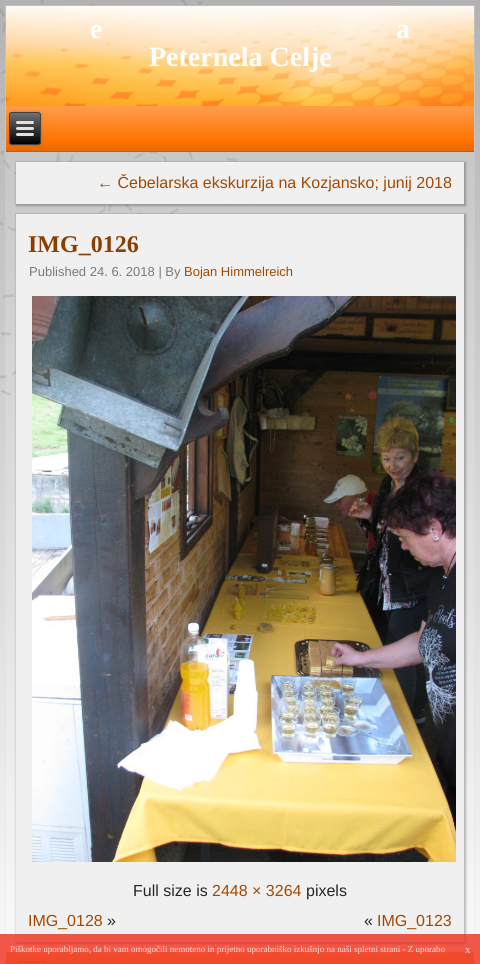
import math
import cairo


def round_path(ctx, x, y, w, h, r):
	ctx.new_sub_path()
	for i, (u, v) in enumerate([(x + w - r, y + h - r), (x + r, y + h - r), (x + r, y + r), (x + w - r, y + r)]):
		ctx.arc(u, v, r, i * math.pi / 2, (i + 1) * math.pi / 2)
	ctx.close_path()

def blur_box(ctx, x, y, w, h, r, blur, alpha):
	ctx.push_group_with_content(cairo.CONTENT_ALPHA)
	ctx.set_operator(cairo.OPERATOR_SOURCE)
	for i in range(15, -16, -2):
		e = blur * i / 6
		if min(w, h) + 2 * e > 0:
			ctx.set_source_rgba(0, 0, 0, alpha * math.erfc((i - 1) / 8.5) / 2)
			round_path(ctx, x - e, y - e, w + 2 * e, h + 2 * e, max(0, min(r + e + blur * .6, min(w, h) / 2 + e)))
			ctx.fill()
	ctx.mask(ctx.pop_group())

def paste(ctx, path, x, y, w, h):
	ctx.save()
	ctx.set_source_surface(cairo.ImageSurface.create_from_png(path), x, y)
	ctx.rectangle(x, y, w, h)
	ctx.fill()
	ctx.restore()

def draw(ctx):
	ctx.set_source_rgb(1, 1, 1)
	ctx.paint()
	paste(ctx, 'media/1.png', 0, 0, 480, 964)
	ctx.rectangle(5.5, 5.5, 469, 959)
	ctx.set_source_rgba(0.78, 0.78, 0.78, 0.15)
	ctx.set_line_width(1)
	ctx.stroke()
	paste(ctx, 'media/2.png', 6, 6, 468, 100)
	ctx.select_font_face('Liberation Serif', cairo.FONT_SLANT_NORMAL, cairo.FONT_WEIGHT_BOLD)
	ctx.set_font_size(28)
	ctx.set_source_rgb(1, 1, 1)
	for x, y, s in [
		(90, 38, 'e'),
		(396, 38, 'a'),
		(149, 66, 'Peternela Celje'),
	]:
		ctx.move_to(x, y)
		ctx.show_text(s)
	gradient = cairo.LinearGradient(240, 106, 240, 152)
	gradient.add_color_stop_rgba(0, 1, 0.616, 0.298, 1)
	gradient.add_color_stop_rgba(0.75, 1, 0.451, 0, 1)
	gradient.add_color_stop_rgba(1, 0.898, 0.404, 0, 1)
	ctx.set_source(gradient)
	ctx.rectangle(6, 106, 468, 45)
	ctx.fill()
	ctx.set_source_rgb(0.451, 0.451, 0.451)
	ctx.rectangle(6, 151, 468, 1)
	ctx.fill()
	ctx.set_source_rgb(0, 0, 0)
	blur_box(ctx, 9, 112, 32, 33, 3, 1.5, 0.2)
	ctx.save()
	round_path(ctx, 9, 112, 32, 33, 3)
	ctx.clip()
	gradient = cairo.LinearGradient(25, 113, 25, 144)
	gradient.add_color_stop_rgba(0, 0.439, 0.439, 0.439, 1)
	gradient.add_color_stop_rgba(1, 0, 0, 0, 1)
	ctx.set_source(gradient)
	ctx.rectangle(9, 113, 32, 31)
	ctx.fill()
	ctx.restore()
	round_path(ctx, 9.5, 112.5, 31, 32, 2.5)
	ctx.set_source_rgb(0.251, 0.251, 0.251)
	ctx.stroke()
	ctx.set_source_rgb(0.878, 0.878, 0.878)
	round_path(ctx, 16, 121, 18, 3, 1.5)
	ctx.fill()
	round_path(ctx, 16, 127, 18, 3, 1.5)
	ctx.fill()
	round_path(ctx, 16, 133, 18, 3, 1.5)
	ctx.fill()
	ctx.set_source_rgb(0, 0, 0)
	blur_box(ctx, 16, 162, 450, 44, 0, 1, 0.25)
	ctx.set_source_rgb(0.941, 0.941, 0.941)
	ctx.rectangle(16, 162, 448, 42)
	ctx.fill()
	ctx.select_font_face('Liberation Sans')
	ctx.set_font_size(16)
	ctx.set_source_rgb(0.639, 0.286, 0)
	ctx.move_to(97, 188)
	ctx.show_text('← Čebelarska ekskurzija na Kozjansko; junij 2018')
	ctx.set_source_rgb(0, 0, 0)
	blur_box(ctx, 16, 214, 450, 730, 0, 1, 0.25)
	ctx.set_source_rgb(0.941, 0.941, 0.941)
	ctx.rectangle(16, 214, 448, 728)
	ctx.fill()
	ctx.select_font_face('Liberation Serif', cairo.FONT_SLANT_NORMAL, cairo.FONT_WEIGHT_BOLD)
	ctx.set_font_size(24)
	ctx.set_source_rgb(0.541, 0.243, 0)
	ctx.move_to(28, 252)
	ctx.show_text('IMG_0126')
	ctx.select_font_face('Liberation Sans')
	ctx.set_font_size(13)
	ctx.set_source_rgb(0.478, 0.478, 0.478)
	ctx.move_to(29, 276)
	ctx.show_text('Published 24. 6. 2018 | By')
	ctx.set_source_rgb(0.639, 0.286, 0)
	ctx.move_to(184, 276)
	ctx.show_text('Bojan Himmelreich')
	paste(ctx, 'media/3.png', 32, 296, 424, 566)
	ctx.set_font_size(16)
	ctx.set_source_rgb(0.149, 0.149, 0.149)
	ctx.move_to(133, 896)
	ctx.show_text('Full size is')
	ctx.set_source_rgb(0.639, 0.286, 0)
	ctx.move_to(212, 896)
	ctx.show_text('2448 × 3264')
	ctx.set_source_rgb(0.149, 0.149, 0.149)
	ctx.move_to(306, 896)
	ctx.show_text('pixels')
	ctx.set_source_rgb(0.639, 0.286, 0)
	ctx.move_to(28, 926)
	ctx.show_text('IMG_0128')
	ctx.set_source_rgb(0.149, 0.149, 0.149)
	ctx.move_to(107, 926)
	ctx.show_text('»')
	ctx.move_to(364, 926)
	ctx.show_text('«')
	ctx.set_source_rgb(0.639, 0.286, 0)
	ctx.move_to(377, 926)
	ctx.show_text('IMG_0123')
	gradient = cairo.LinearGradient(240, 952, 240, 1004)
	gradient.add_color_stop_rgba(0, 1, 0.725, 0.502, 1)
	gradient.add_color_stop_rgba(1, 1, 0.561, 0.2, 1)
	ctx.set_source(gradient)
	ctx.rectangle(6, 952, 468, 12)
	ctx.fill()
	paste(ctx, 'media/4.png', 17, 962, 30, 2)
	ctx.set_source_rgba(0.929, 0.184, 0.102, 0.8)
	ctx.rectangle(0, 934, 480, 30)
	ctx.fill()
	ctx.select_font_face('Liberation Serif')
	ctx.set_font_size(9)
	ctx.set_source_rgb(0.988, 0.867, 0.855)
	ctx.move_to(10, 952)
	ctx.show_text('Piškotke uporabljamo, da bi vam omogočili nemoteno in prijetno uporabniško izkušnjo na naši spletni strani - Z uporabo')
	ctx.set_font_size(11)
	ctx.move_to(465, 953)
	ctx.show_text('x')


surface = cairo.ImageSurface(cairo.FORMAT_RGB24, 480, 964)
ctx = cairo.Context(surface)
options = cairo.FontOptions()
options.set_hint_metrics(cairo.HINT_METRICS_OFF)
options.set_hint_style(cairo.HINT_STYLE_NONE)
ctx.set_font_options(options)
ctx.set_miter_limit(4)
draw(ctx)
surface.write_to_png('image.png')
